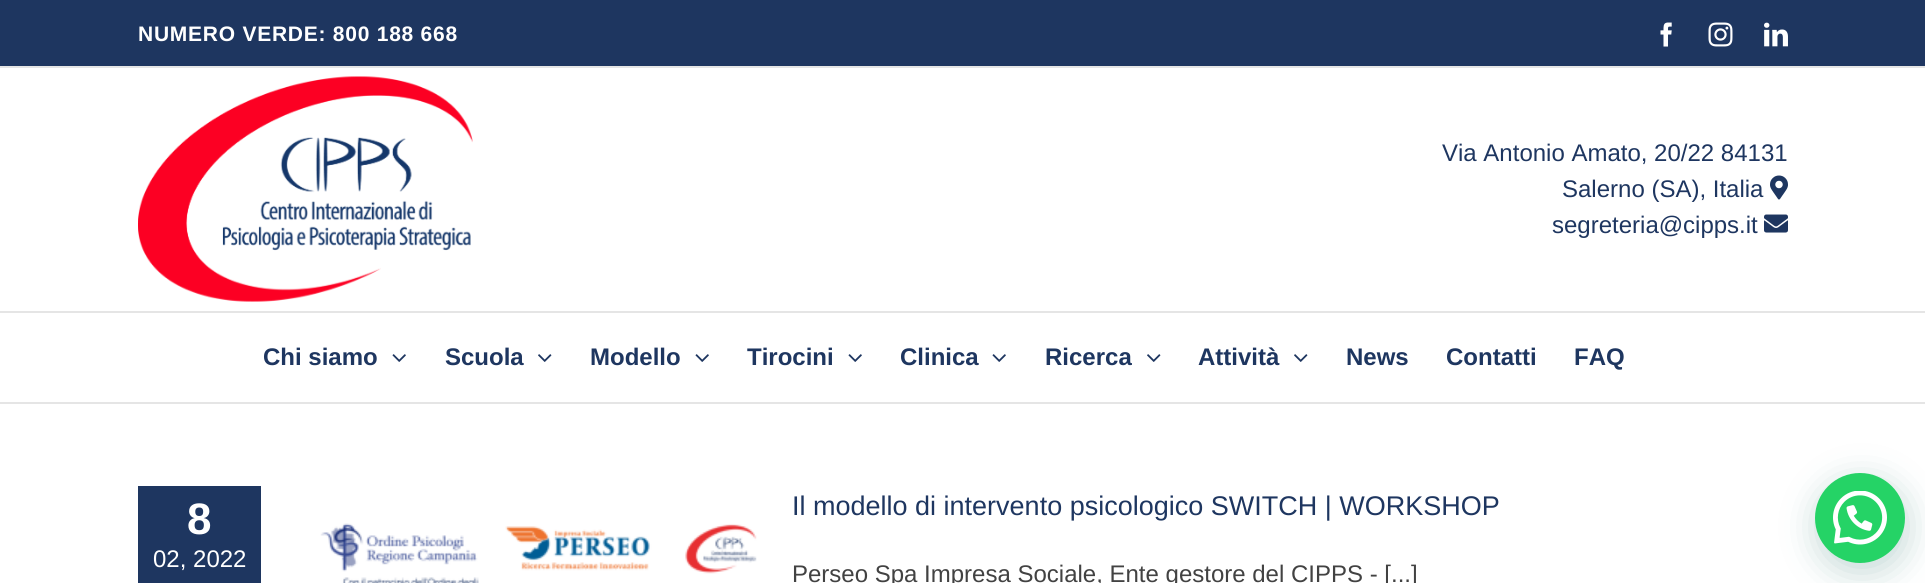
import math
import cairo


def write_spaced(ctx, x, y, s, letter, word):
	ctx.move_to(x, y)
	for ch in s:
		ctx.show_text(ch)
		ctx.rel_move_to(letter + word * (ch == ' '), 0)

def round_path(ctx, x, y, w, h, r):
	ctx.new_sub_path()
	for i, (u, v) in enumerate([(x + w - r, y + h - r), (x + r, y + h - r), (x + r, y + r), (x + w - r, y + r)]):
		ctx.arc(u, v, r, i * math.pi / 2, (i + 1) * math.pi / 2)
	ctx.close_path()

def blur_box(ctx, x, y, w, h, r, blur, alpha):
	ctx.push_group_with_content(cairo.CONTENT_ALPHA)
	ctx.set_operator(cairo.OPERATOR_SOURCE)
	for i in range(15, -16, -2):
		e = blur * i / 6
		if min(w, h) + 2 * e > 0:
			ctx.set_source_rgba(0, 0, 0, alpha * math.erfc((i - 1) / 8.5) / 2)
			round_path(ctx, x - e, y - e, w + 2 * e, h + 2 * e, max(0, min(r + e + blur * .6, min(w, h) / 2 + e)))
			ctx.fill()
	ctx.mask(ctx.pop_group())

def paste(ctx, path, x, y, w, h):
	ctx.save()
	ctx.set_source_surface(cairo.ImageSurface.create_from_png(path), x, y)
	ctx.rectangle(x, y, w, h)
	ctx.fill()
	ctx.restore()

def draw(ctx):
	ctx.set_source_rgb(1, 1, 1)
	ctx.paint()
	ctx.set_source_rgb(0.118, 0.212, 0.376)
	ctx.rectangle(0, 0, 1925, 66)
	ctx.fill()
	ctx.set_source_rgb(0.898, 0.898, 0.898)
	ctx.rectangle(0, 66, 1925, 2)
	ctx.fill()
	ctx.select_font_face('Liberation Sans', cairo.FONT_SLANT_NORMAL, cairo.FONT_WEIGHT_BOLD)
	ctx.set_font_size(21)
	ctx.set_source_rgb(1, 1, 1)
	write_spaced(ctx, 138, 41, 'NUMERO VERDE: 800 188 668', 0.75, 0)
	paste(ctx, 'media/1.png', 1660, 22, 12, 25)
	paste(ctx, 'media/2.png', 1708, 22, 25, 25)
	paste(ctx, 'media/3.png', 1764, 22, 24, 25)
	ctx.set_source_rgb(0.898, 0.898, 0.898)
	ctx.rectangle(0, 311, 1925, 2)
	ctx.fill()
	paste(ctx, 'media/4.png', 138, 76, 335, 226)
	ctx.select_font_face('Liberation Sans')
	ctx.set_font_size(24)
	ctx.set_source_rgb(0.118, 0.212, 0.376)
	ctx.move_to(1442, 161)
	ctx.show_text('Via Antonio Amato, 20/22 84131')
	ctx.move_to(1562, 197)
	ctx.show_text('Salerno (SA), Italia')
	paste(ctx, 'media/5.png', 1770, 175, 18, 25)
	ctx.move_to(1552, 233)
	ctx.show_text('segreteria@cipps.it')
	paste(ctx, 'media/6.png', 1764, 214, 24, 19)
	ctx.set_source_rgb(0.898, 0.898, 0.898)
	ctx.rectangle(0, 402, 1925, 2)
	ctx.fill()
	ctx.select_font_face('Liberation Sans', cairo.FONT_SLANT_NORMAL, cairo.FONT_WEIGHT_BOLD)
	ctx.set_source_rgb(0.118, 0.212, 0.376)
	ctx.move_to(263, 365)
	ctx.show_text('Chi siamo')
	paste(ctx, 'media/7.png', 392, 354, 14, 8)
	ctx.move_to(445, 365)
	ctx.show_text('Scuola')
	paste(ctx, 'media/8.png', 538, 354, 14, 8)
	ctx.move_to(590, 365)
	ctx.show_text('Modello')
	paste(ctx, 'media/7.png', 695, 354, 14, 8)
	ctx.move_to(747, 365)
	ctx.show_text('Tirocini')
	paste(ctx, 'media/7.png', 848, 354, 14, 8)
	ctx.move_to(900, 365)
	ctx.show_text('Clinica')
	paste(ctx, 'media/7.png', 992, 354, 14, 8)
	ctx.move_to(1045, 365)
	ctx.show_text('Ricerca')
	paste(ctx, 'media/8.png', 1147, 354, 14, 8)
	ctx.move_to(1198, 365)
	ctx.show_text('Attività')
	paste(ctx, 'media/8.png', 1294, 354, 14, 8)
	for x, y, s in [
		(1346, 365, 'News'),
		(1446, 365, 'Contatti'),
		(1574, 365, 'FAQ'),
	]:
		ctx.move_to(x, y)
		ctx.show_text(s)
	ctx.rectangle(138, 486, 123, 97)
	ctx.fill()
	ctx.set_font_size(44)
	ctx.set_source_rgb(1, 1, 1)
	ctx.move_to(187, 534)
	ctx.show_text('8')
	ctx.select_font_face('Liberation Sans')
	ctx.set_font_size(24)
	ctx.move_to(153, 567)
	ctx.show_text('02, 2022')
	paste(ctx, 'media/9.png', 320, 523, 437, 60)
	ctx.set_font_size(27)
	ctx.set_source_rgb(0.118, 0.212, 0.376)
	ctx.move_to(792, 515)
	ctx.show_text('Il modello di intervento psicologico SWITCH | WORKSHOP')
	ctx.set_font_size(24)
	ctx.set_source_rgb(0.259, 0.259, 0.259)
	ctx.move_to(792, 582)
	ctx.show_text('Perseo Spa Impresa Sociale, Ente gestore del CIPPS - [...]')
	ctx.set_source_rgb(0.027, 0.369, 0.329)
	blur_box(ctx, 1817, 482, 90, 90, 45, 18, 0.24)
	ctx.set_source_rgb(0.145, 0.827, 0.4)
	ctx.arc(1860, 518, 45, 0, 2 * math.pi)
	ctx.fill()
	paste(ctx, 'media/10.png', 1833, 491, 54, 54)


surface = cairo.ImageSurface(cairo.FORMAT_RGB24, 1925, 583)
ctx = cairo.Context(surface)
options = cairo.FontOptions()
options.set_hint_metrics(cairo.HINT_METRICS_OFF)
options.set_hint_style(cairo.HINT_STYLE_NONE)
ctx.set_font_options(options)
ctx.set_miter_limit(4)
draw(ctx)
surface.write_to_png('image.png')
